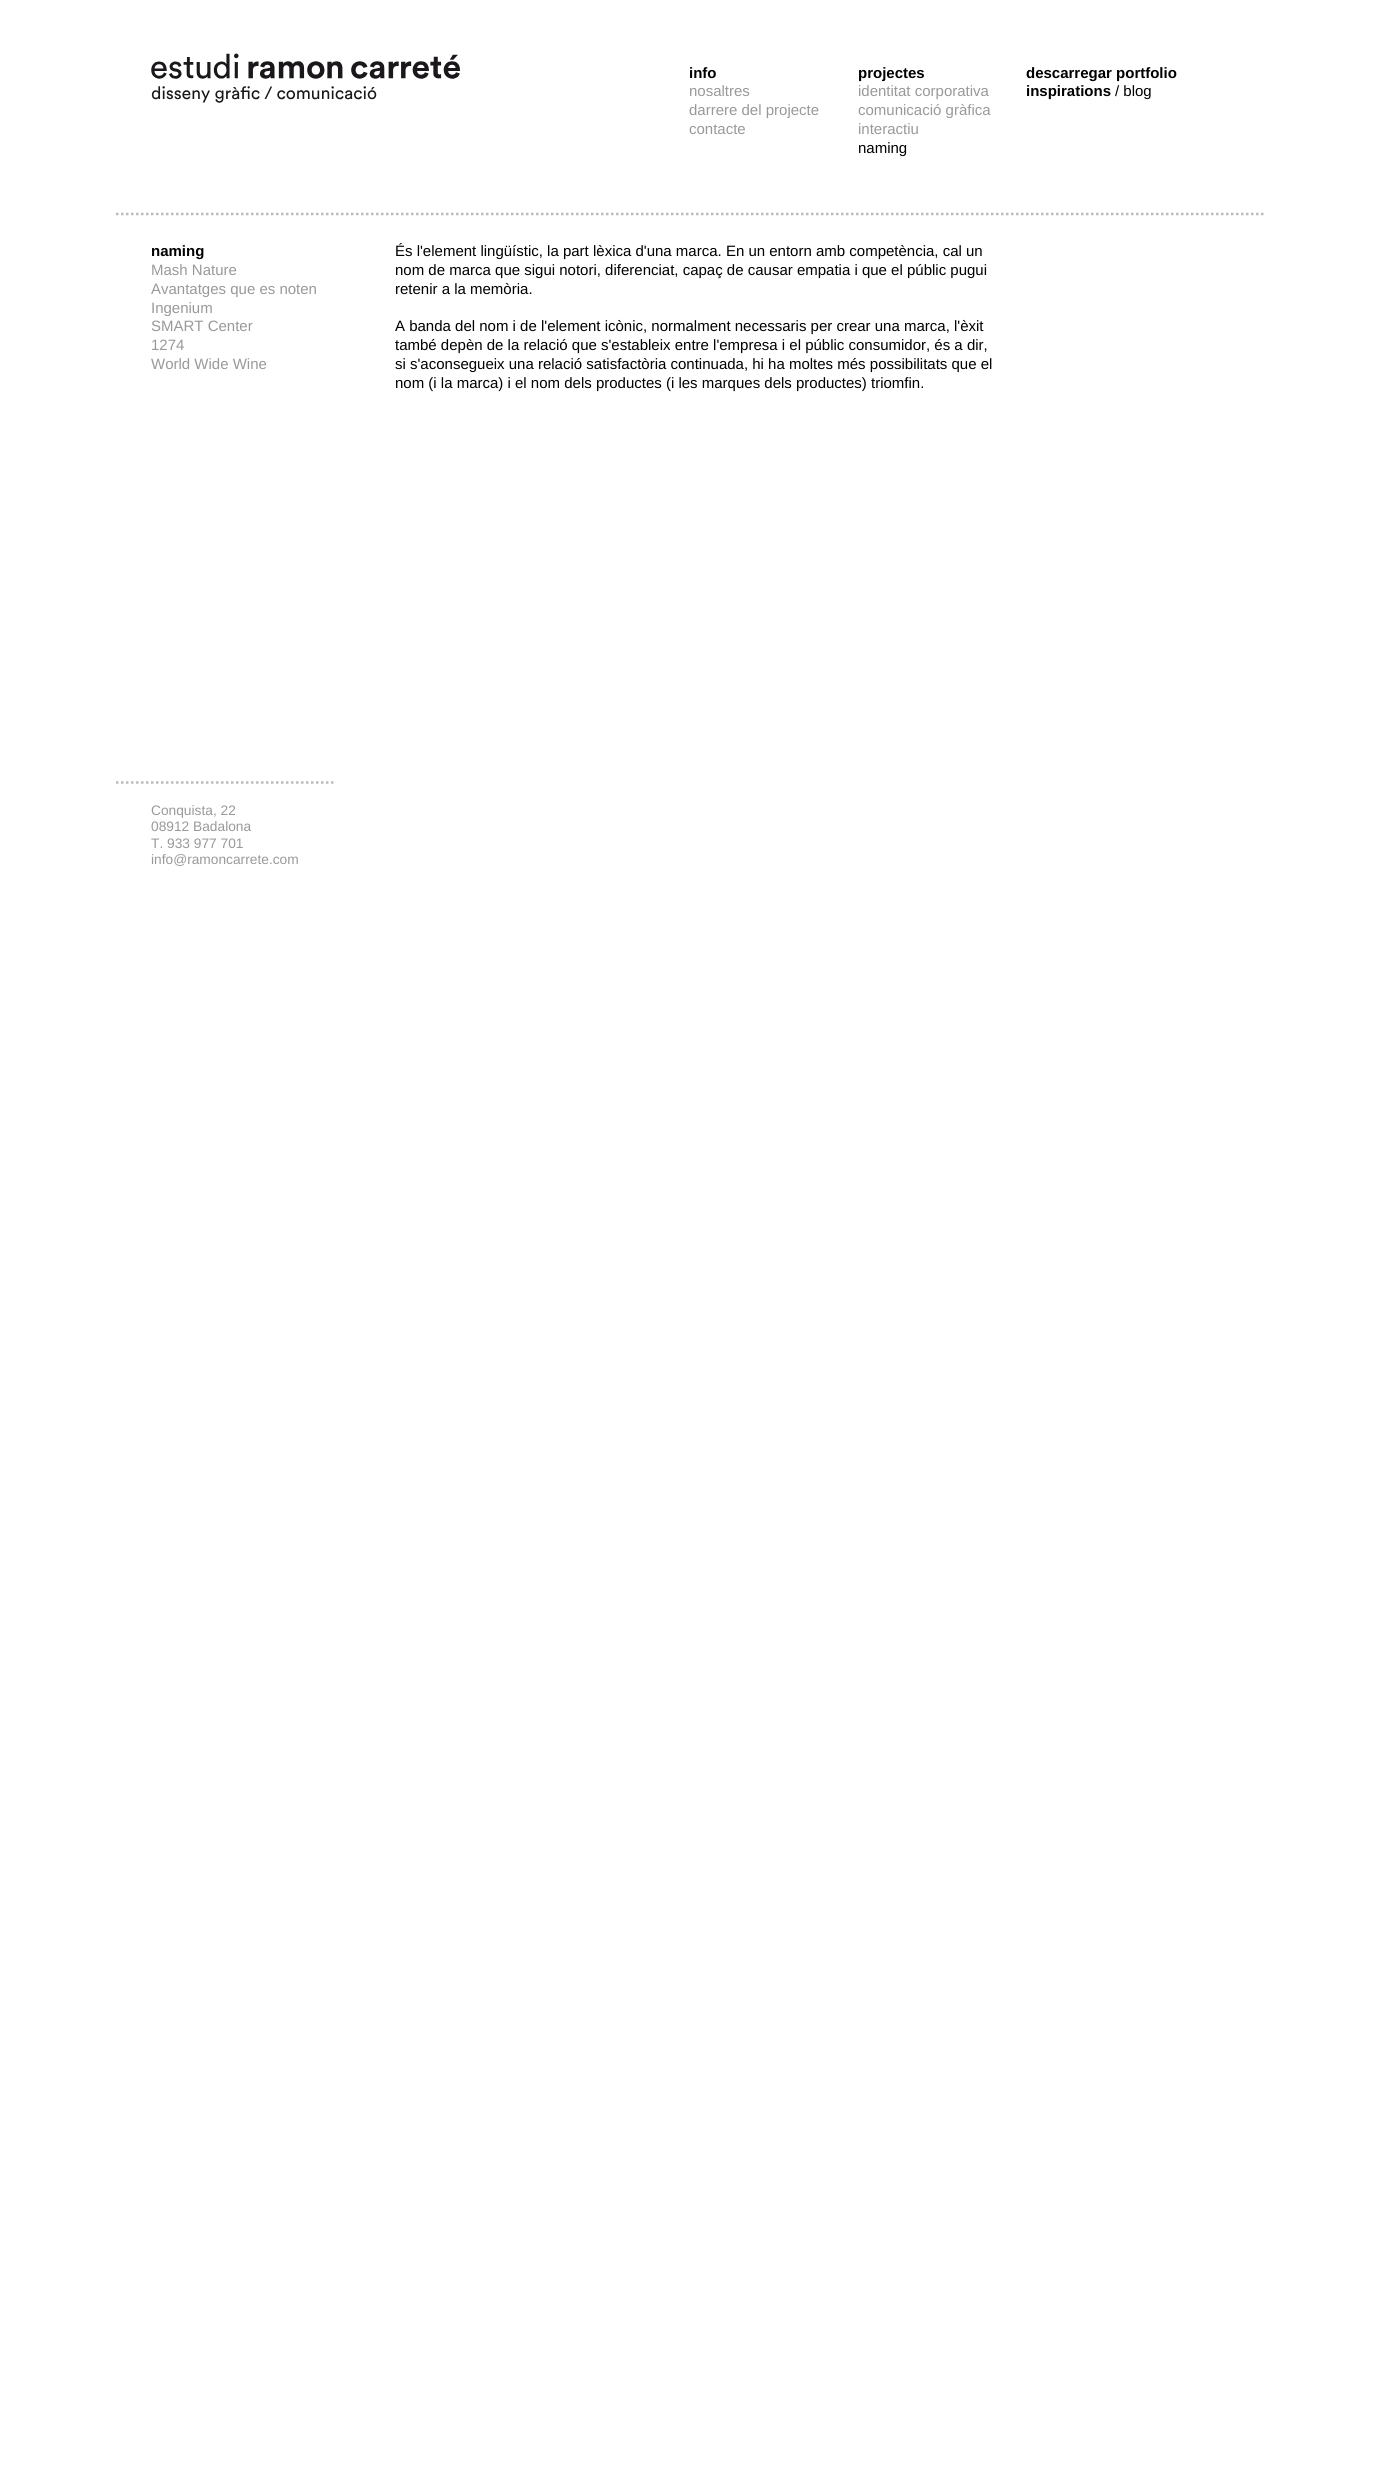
import math
import cairo


def paste(ctx, path, x, y, w, h):
	ctx.save()
	ctx.set_source_surface(cairo.ImageSurface.create_from_png(path), x, y)
	ctx.rectangle(x, y, w, h)
	ctx.fill()
	ctx.restore()

def draw(ctx):
	ctx.set_source_rgb(1, 1, 1)
	ctx.paint()
	paste(ctx, 'media/1.png', 151, 53, 309, 50)
	ctx.select_font_face('Liberation Sans', cairo.FONT_SLANT_NORMAL, cairo.FONT_WEIGHT_BOLD)
	ctx.set_font_size(15)
	ctx.set_source_rgb(0, 0, 0)
	ctx.move_to(689, 78)
	ctx.show_text('info')
	ctx.select_font_face('Liberation Sans')
	ctx.set_source_rgb(0.6, 0.6, 0.6)
	for x, y, s in [
		(689, 96, 'nosaltres'),
		(689, 115, 'darrere del projecte'),
		(689, 134, 'contacte'),
	]:
		ctx.move_to(x, y)
		ctx.show_text(s)
	ctx.select_font_face('Liberation Sans', cairo.FONT_SLANT_NORMAL, cairo.FONT_WEIGHT_BOLD)
	ctx.set_source_rgb(0, 0, 0)
	ctx.move_to(858, 78)
	ctx.show_text('projectes')
	ctx.select_font_face('Liberation Sans')
	ctx.set_source_rgb(0.6, 0.6, 0.6)
	for x, y, s in [
		(858, 96, 'identitat corporativa'),
		(858, 115, 'comunicació gràfica'),
		(858, 134, 'interactiu'),
	]:
		ctx.move_to(x, y)
		ctx.show_text(s)
	ctx.set_source_rgb(0, 0, 0)
	ctx.move_to(858, 153)
	ctx.show_text('naming')
	ctx.select_font_face('Liberation Sans', cairo.FONT_SLANT_NORMAL, cairo.FONT_WEIGHT_BOLD)
	ctx.move_to(1026, 78)
	ctx.show_text('descarregar portfolio')
	ctx.move_to(1026, 96)
	ctx.show_text('inspirations')
	ctx.select_font_face('Liberation Sans')
	ctx.move_to(1115, 96)
	ctx.show_text('/ blog')
	ctx.new_path()
	ctx.move_to(116, 214)
	ctx.line_to(1266, 214)
	ctx.set_source_rgb(0.733, 0.737, 0.745)
	ctx.set_line_width(2.5)
	ctx.set_dash([2.5, 2.5])
	ctx.stroke()
	ctx.select_font_face('Liberation Sans', cairo.FONT_SLANT_NORMAL, cairo.FONT_WEIGHT_BOLD)
	ctx.set_source_rgb(0, 0, 0)
	ctx.move_to(151, 256)
	ctx.show_text('naming')
	ctx.select_font_face('Liberation Sans')
	ctx.set_source_rgb(0.6, 0.6, 0.6)
	for x, y, s in [
		(151, 275, 'Mash Nature'),
		(151, 294, 'Avantatges que es noten'),
		(151, 313, 'Ingenium'),
		(151, 331, 'SMART Center'),
		(151, 350, '1274'),
		(151, 369, 'World Wide Wine'),
	]:
		ctx.move_to(x, y)
		ctx.show_text(s)
	ctx.set_source_rgb(0, 0, 0)
	for x, y, s in [
		(395, 256, 'És l\'element lingüístic, la part lèxica d\'una marca. En un entorn amb competència, cal un'),
		(395, 275, 'nom de marca que sigui notori, diferenciat, capaç de causar empatia i que el públic pugui'),
		(395, 294, 'retenir a la memòria.'),
		(395, 331, 'A banda del nom i de l\'element icònic, normalment necessaris per crear una marca, l\'èxit'),
		(395, 350, 'també depèn de la relació que s\'estableix entre l\'empresa i el públic consumidor, és a dir,'),
		(395, 369, 'si s\'aconsegueix una relació satisfactòria continuada, hi ha moltes més possibilitats que el'),
		(395, 388, 'nom (i la marca) i el nom dels productes (i les marques dels productes) triomfin.'),
	]:
		ctx.move_to(x, y)
		ctx.show_text(s)
	ctx.new_path()
	ctx.move_to(116, 782.5)
	ctx.line_to(335, 782.5)
	ctx.set_source_rgb(0.733, 0.737, 0.745)
	ctx.stroke()
	ctx.set_font_size(13.75)
	ctx.set_source_rgb(0.6, 0.6, 0.6)
	for x, y, s in [
		(151, 815, 'Conquista, 22'),
		(151, 831, '08912 Badalona'),
		(151, 848, 'T. 933 977 701'),
		(151, 864, 'info@ramoncarrete.com'),
	]:
		ctx.move_to(x, y)
		ctx.show_text(s)


surface = cairo.ImageSurface(cairo.FORMAT_RGB24, 1382, 2477)
ctx = cairo.Context(surface)
options = cairo.FontOptions()
options.set_hint_metrics(cairo.HINT_METRICS_OFF)
options.set_hint_style(cairo.HINT_STYLE_NONE)
ctx.set_font_options(options)
ctx.set_miter_limit(4)
draw(ctx)
surface.write_to_png('image.png')
